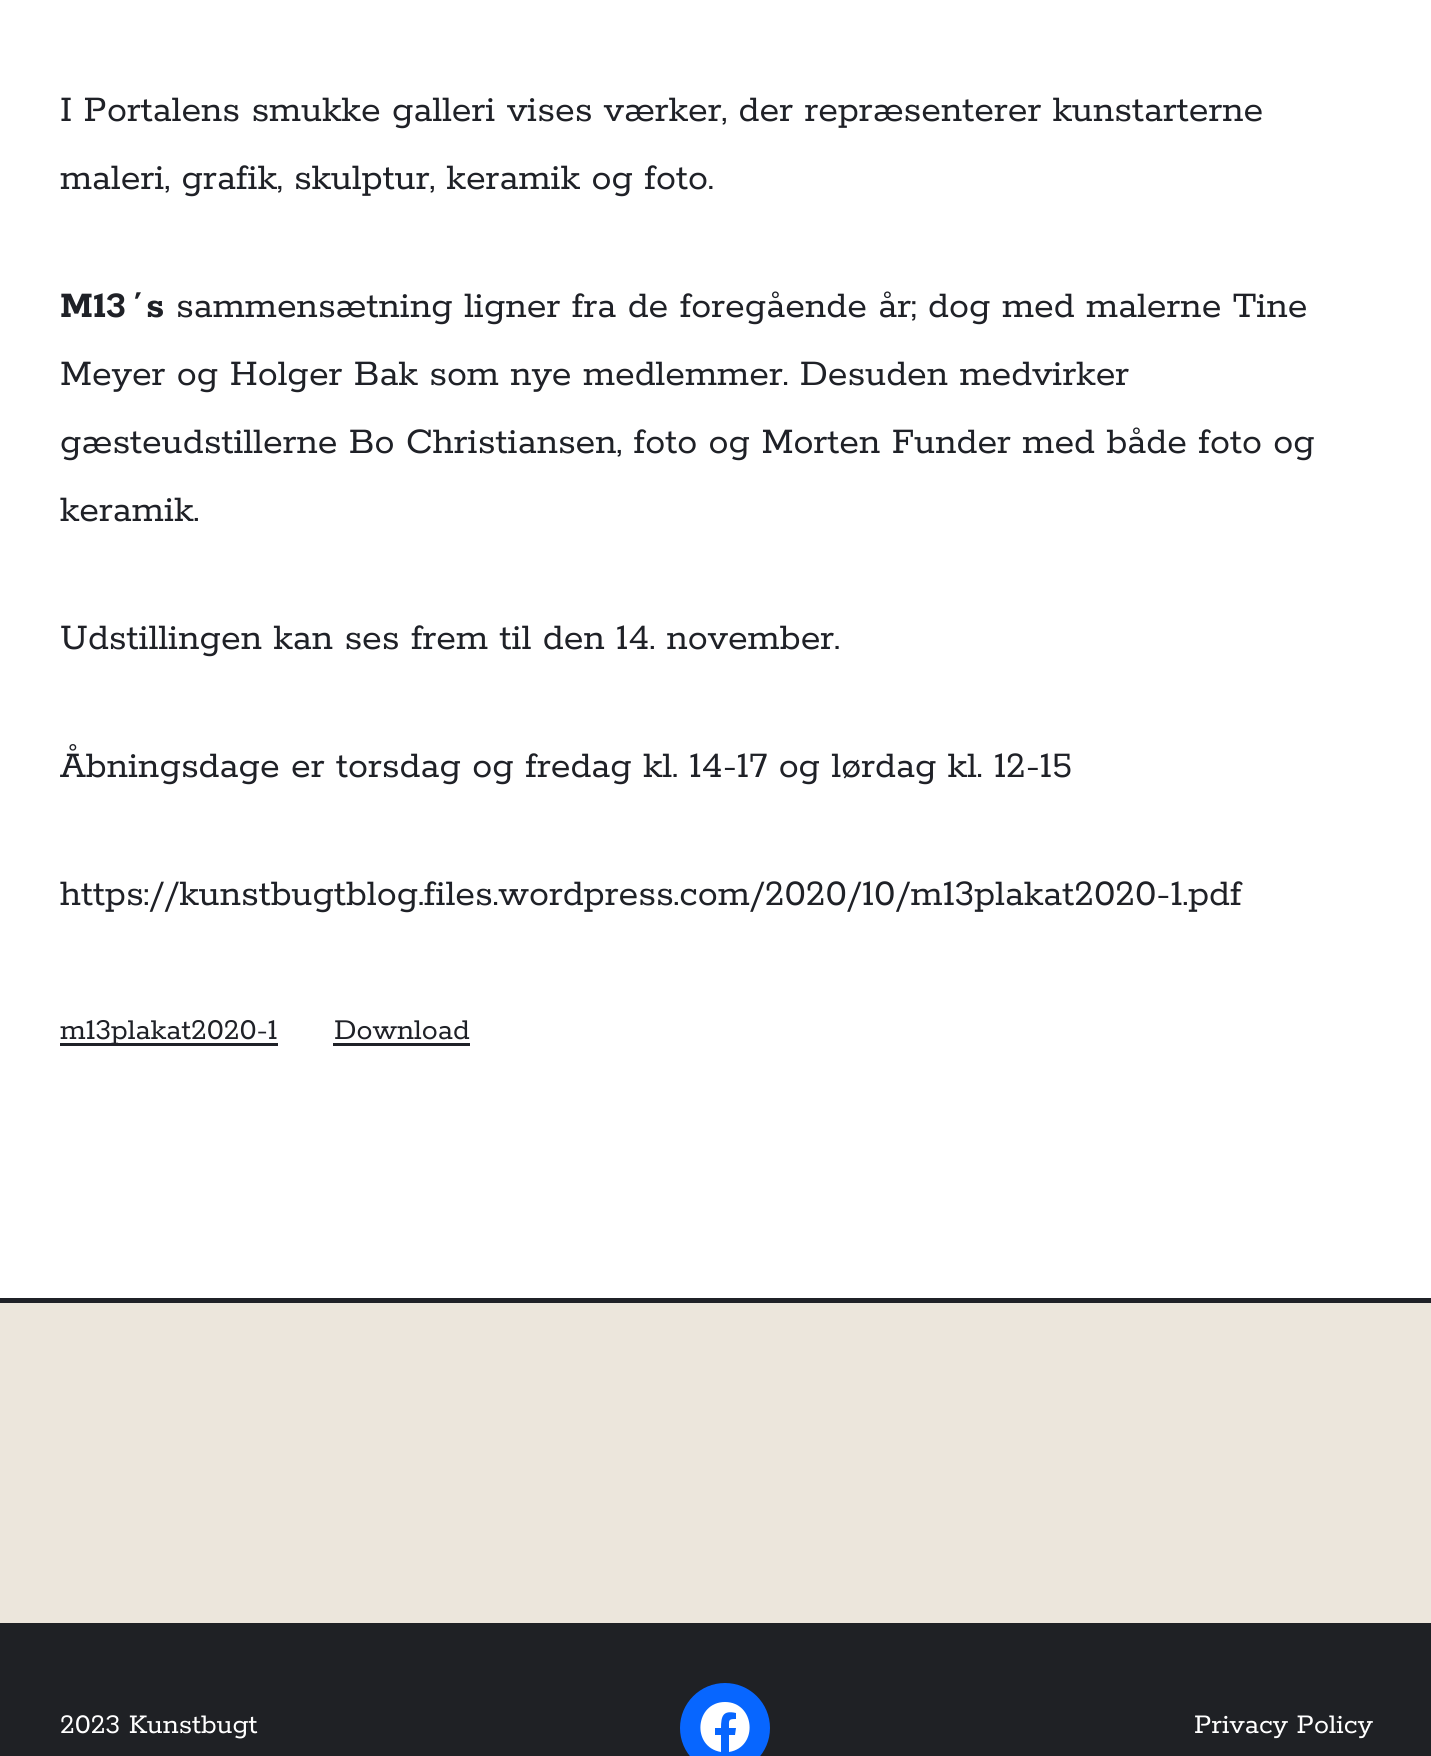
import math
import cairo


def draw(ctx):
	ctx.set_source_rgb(0.925, 0.902, 0.863)
	ctx.paint()
	ctx.set_source_rgb(1, 1, 1)
	ctx.rectangle(0, 0, 1431, 1298)
	ctx.fill()
	ctx.select_font_face('Rokkitt')
	ctx.set_font_size(40)
	ctx.set_source_rgb(0.122, 0.129, 0.153)
	ctx.move_to(60, 121)
	ctx.show_text('I Portalens smukke galleri vises værker, der repræsenterer kunstarterne')
	ctx.move_to(60, 189)
	ctx.show_text('maleri, grafik, skulptur, keramik og foto.')
	ctx.select_font_face('Rokkitt', cairo.FONT_SLANT_NORMAL, cairo.FONT_WEIGHT_BOLD)
	ctx.move_to(60, 317)
	ctx.show_text('M13´s')
	ctx.select_font_face('Rokkitt')
	for x, y, s in [
		(176, 317, 'sammensætning ligner fra de foregående år; dog med malerne Tine'),
		(60, 385, 'Meyer og Holger Bak som nye medlemmer. Desuden medvirker'),
		(60, 453, 'gæsteudstillerne Bo Christiansen, foto og Morten Funder med både foto og'),
		(60, 521, 'keramik.'),
		(60, 649, 'Udstillingen kan ses frem til den 14. november.'),
		(60, 777, 'Åbningsdage er torsdag og fredag kl. 14-17 og lørdag kl. 12-15'),
		(60, 905, 'https://kunstbugtblog.files.wordpress.com/2020/10/m13plakat2020-1.pdf'),
	]:
		ctx.move_to(x, y)
		ctx.show_text(s)
	ctx.rectangle(60, 1043, 218, 3)
	ctx.fill()
	ctx.set_font_size(32)
	ctx.move_to(60, 1039)
	ctx.show_text('m13plakat2020-1')
	ctx.move_to(334, 1039)
	ctx.show_text('Download')
	ctx.rectangle(333, 1043, 137, 3)
	ctx.rectangle(0, 1298, 1431, 5)
	ctx.fill()
	ctx.set_source_rgb(0.122, 0.129, 0.145)
	ctx.rectangle(0, 1623, 1431, 133)
	ctx.fill()
	ctx.set_font_size(30)
	ctx.set_source_rgb(1, 1, 1)
	ctx.move_to(60, 1733)
	ctx.show_text('2023 Kunstbugt')
	ctx.set_source_rgb(0.031, 0.4, 1)
	ctx.new_path()
	ctx.arc(725, 1728, 45, 0, 2 * math.pi)
	ctx.fill()
	ctx.set_source_rgb(1, 1, 1)
	ctx.new_path()
	ctx.move_to(725, 1702)
	ctx.curve_to(695, 1702, 691, 1747, 721, 1752)
	ctx.line_to(721, 1735)
	ctx.line_to(715, 1735)
	ctx.line_to(715, 1728)
	ctx.line_to(721, 1728)
	ctx.curve_to(721, 1716, 723, 1710, 736, 1713)
	ctx.line_to(736, 1719)
	ctx.curve_to(728, 1719, 729, 1720, 729, 1728)
	ctx.line_to(736, 1728)
	ctx.line_to(735, 1735)
	ctx.line_to(729, 1735)
	ctx.line_to(729, 1752)
	ctx.curve_to(759, 1747, 755, 1702, 725, 1702)
	ctx.close_path()
	ctx.fill()
	ctx.move_to(1194, 1733)
	ctx.show_text('Privacy Policy')


surface = cairo.ImageSurface(cairo.FORMAT_RGB24, 1431, 1756)
ctx = cairo.Context(surface)
options = cairo.FontOptions()
options.set_hint_metrics(cairo.HINT_METRICS_OFF)
options.set_hint_style(cairo.HINT_STYLE_NONE)
ctx.set_font_options(options)
ctx.set_miter_limit(4)
draw(ctx)
surface.write_to_png('image.png')
